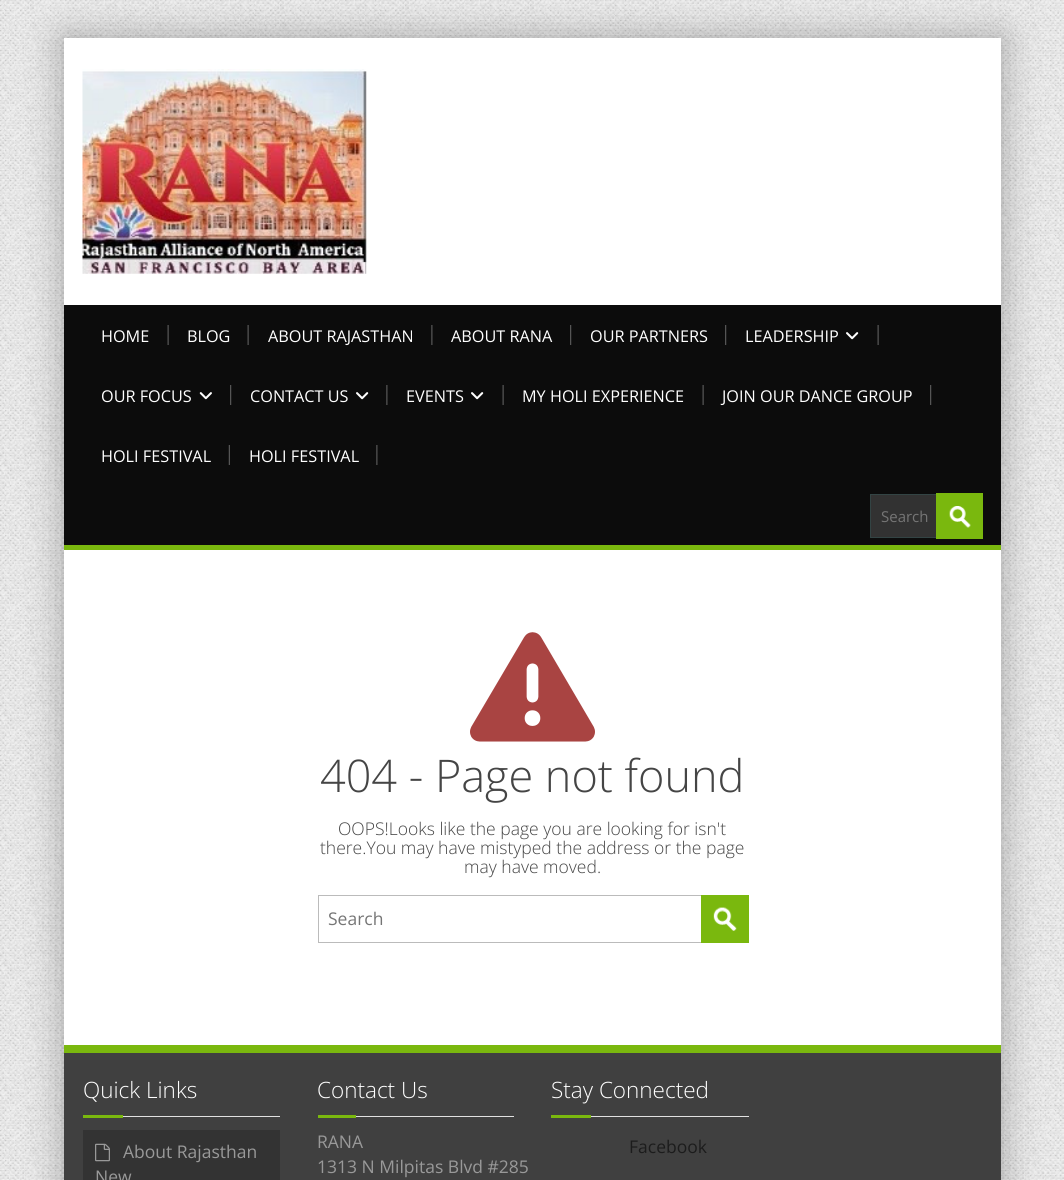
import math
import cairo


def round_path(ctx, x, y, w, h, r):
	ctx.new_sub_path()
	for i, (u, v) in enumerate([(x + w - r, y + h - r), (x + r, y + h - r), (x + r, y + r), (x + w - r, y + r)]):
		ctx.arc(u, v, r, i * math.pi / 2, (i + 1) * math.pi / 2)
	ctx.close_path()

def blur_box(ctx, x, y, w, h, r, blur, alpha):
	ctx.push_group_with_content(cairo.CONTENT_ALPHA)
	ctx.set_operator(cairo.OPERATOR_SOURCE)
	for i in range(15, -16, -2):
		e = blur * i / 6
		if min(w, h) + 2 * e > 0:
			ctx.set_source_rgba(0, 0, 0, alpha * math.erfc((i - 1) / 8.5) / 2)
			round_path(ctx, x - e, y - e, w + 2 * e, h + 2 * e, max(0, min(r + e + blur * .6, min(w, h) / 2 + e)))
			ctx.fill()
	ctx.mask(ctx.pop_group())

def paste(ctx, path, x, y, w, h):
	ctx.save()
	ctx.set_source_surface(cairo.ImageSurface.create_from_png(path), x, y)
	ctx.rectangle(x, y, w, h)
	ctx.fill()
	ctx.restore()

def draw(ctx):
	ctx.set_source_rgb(1, 1, 1)
	ctx.paint()
	paste(ctx, 'media/1.png', 0, 0, 1064, 1180)
	ctx.set_source_rgb(0, 0, 0)
	blur_box(ctx, 64, 38, 937, 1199, 0, 19, 0.3)
	ctx.set_source_rgb(1, 1, 1)
	ctx.rectangle(64, 38, 937, 1007)
	ctx.fill()
	paste(ctx, 'media/2.png', 82, 69, 285, 205)
	ctx.set_source_rgb(0.047, 0.047, 0.047)
	ctx.rectangle(64, 305, 937, 240)
	ctx.fill()
	ctx.set_source_rgb(0.478, 0.722, 0.055)
	ctx.rectangle(64, 545, 937, 5)
	ctx.fill()
	paste(ctx, 'media/3.png', 167, 325, 2, 20)
	ctx.select_font_face('Open Sans')
	ctx.set_font_size(16.25)
	ctx.set_source_rgb(1, 1, 1)
	ctx.move_to(101, 342)
	ctx.show_text('HOME')
	paste(ctx, 'media/3.png', 247, 325, 2, 20)
	ctx.move_to(187, 342)
	ctx.show_text('BLOG')
	paste(ctx, 'media/4.png', 431, 325, 2, 20)
	ctx.move_to(268, 342)
	ctx.show_text('ABOUT RAJASTHAN')
	paste(ctx, 'media/5.png', 570, 325, 2, 20)
	ctx.move_to(451, 342)
	ctx.show_text('ABOUT RANA')
	paste(ctx, 'media/5.png', 725, 325, 2, 20)
	ctx.move_to(590, 342)
	ctx.show_text('OUR PARTNERS')
	paste(ctx, 'media/3.png', 877, 325, 2, 20)
	ctx.move_to(745, 342)
	ctx.show_text('LEADERSHIP')
	paste(ctx, 'media/6.png', 846, 332, 13, 8)
	paste(ctx, 'media/5.png', 230, 385, 2, 20)
	ctx.move_to(101, 402)
	ctx.show_text('OUR FOCUS')
	paste(ctx, 'media/7.png', 199, 392, 13, 8)
	paste(ctx, 'media/4.png', 386, 385, 2, 20)
	ctx.move_to(250, 402)
	ctx.show_text('CONTACT US')
	paste(ctx, 'media/6.png', 356, 392, 13, 8)
	paste(ctx, 'media/3.png', 502, 385, 2, 20)
	ctx.move_to(406, 402)
	ctx.show_text('EVENTS')
	paste(ctx, 'media/6.png', 471, 392, 13, 8)
	paste(ctx, 'media/3.png', 702, 385, 2, 20)
	ctx.move_to(522, 402)
	ctx.show_text('MY HOLI EXPERIENCE')
	paste(ctx, 'media/5.png', 930, 385, 2, 20)
	ctx.move_to(722, 402)
	ctx.show_text('JOIN OUR DANCE GROUP')
	paste(ctx, 'media/8.png', 228, 445, 2, 20)
	ctx.move_to(101, 462)
	ctx.show_text('HOLI FESTIVAL')
	paste(ctx, 'media/4.png', 376, 445, 2, 20)
	ctx.move_to(249, 462)
	ctx.show_text('HOLI FESTIVAL')
	ctx.set_source_rgb(0.196, 0.196, 0.196)
	ctx.rectangle(871, 495, 65, 42)
	ctx.fill()
	ctx.rectangle(870.5, 494.5, 112, 43)
	ctx.set_source_rgb(0.2, 0.267, 0.267)
	ctx.set_line_width(1)
	ctx.stroke()
	ctx.set_font_size(15)
	ctx.set_source_rgb(0.459, 0.459, 0.459)
	ctx.move_to(881, 522)
	ctx.show_text('Search')
	ctx.set_source_rgb(0.478, 0.722, 0.055)
	ctx.rectangle(936, 493, 47, 46)
	ctx.fill()
	paste(ctx, 'media/9.png', 949, 506, 22, 22)
	paste(ctx, 'media/10.png', 470, 632, 125, 110)
	ctx.select_font_face('Open Sans Light')
	ctx.set_font_size(45)
	ctx.set_source_rgb(0.271, 0.271, 0.271)
	ctx.move_to(320, 792)
	ctx.show_text('404 - Page not found')
	ctx.set_font_size(17.5)
	for x, y, s in [
		(338, 835, 'OOPS!Looks like the page you are looking for isn\'t'),
		(320, 854, 'there.You may have mistyped the address or the page'),
		(464, 873, 'may have moved.'),
	]:
		ctx.move_to(x, y)
		ctx.show_text(s)
	ctx.rectangle(318.5, 895.5, 384, 47)
	ctx.set_source_rgb(0.733, 0.733, 0.733)
	ctx.stroke()
	ctx.select_font_face('Open Sans')
	ctx.set_source_rgb(0.459, 0.459, 0.459)
	ctx.move_to(328, 925)
	ctx.show_text('Search')
	ctx.set_source_rgb(0.478, 0.722, 0.055)
	ctx.rectangle(701, 895, 48, 48)
	ctx.fill()
	paste(ctx, 'media/11.png', 713, 907, 24, 24)
	ctx.set_source_rgb(0.251, 0.251, 0.251)
	ctx.rectangle(64, 1053, 937, 127)
	ctx.fill()
	ctx.set_source_rgb(0.478, 0.722, 0.055)
	ctx.rectangle(64, 1045, 937, 8)
	ctx.fill()
	ctx.select_font_face('Open Sans Light')
	ctx.set_font_size(22.5)
	ctx.set_source_rgb(1, 1, 1)
	ctx.move_to(83, 1098)
	ctx.show_text('Quick Links')
	ctx.set_source_rgb(0.478, 0.722, 0.055)
	ctx.rectangle(83, 1115, 40, 3)
	ctx.fill()
	ctx.set_source_rgb(0.882, 0.882, 0.882)
	ctx.rectangle(123, 1116, 157, 1)
	ctx.fill()
	ctx.set_source_rgb(0.2, 0.2, 0.2)
	ctx.rectangle(83, 1130, 197, 50)
	ctx.fill()
	paste(ctx, 'media/12.png', 95, 1143, 15, 19)
	ctx.select_font_face('Open Sans')
	ctx.set_font_size(17.5)
	ctx.set_source_rgb(0.6, 0.6, 0.6)
	ctx.move_to(123, 1158)
	ctx.show_text('About Rajasthan')
	ctx.move_to(95, 1183)
	ctx.show_text('New')
	ctx.select_font_face('Open Sans Light')
	ctx.set_font_size(22.5)
	ctx.set_source_rgb(1, 1, 1)
	ctx.move_to(317, 1098)
	ctx.show_text('Contact Us')
	ctx.set_source_rgb(0.478, 0.722, 0.055)
	ctx.rectangle(318, 1115, 38, 3)
	ctx.fill()
	ctx.set_source_rgb(0.882, 0.882, 0.882)
	ctx.rectangle(356, 1116, 158, 1)
	ctx.fill()
	ctx.select_font_face('Open Sans')
	ctx.set_font_size(17.5)
	ctx.set_source_rgb(0.6, 0.6, 0.6)
	ctx.move_to(317, 1148)
	ctx.show_text('RANA')
	ctx.move_to(317, 1173)
	ctx.show_text('1313 N Milpitas Blvd #285')
	ctx.select_font_face('Open Sans Light')
	ctx.set_font_size(22.5)
	ctx.set_source_rgb(1, 1, 1)
	ctx.move_to(551, 1098)
	ctx.show_text('Stay Connected')
	ctx.set_source_rgb(0.478, 0.722, 0.055)
	ctx.rectangle(551, 1115, 40, 3)
	ctx.fill()
	ctx.set_source_rgb(0.882, 0.882, 0.882)
	ctx.rectangle(591, 1116, 158, 1)
	ctx.fill()
	ctx.select_font_face('Open Sans')
	ctx.set_font_size(17.5)
	ctx.set_source_rgb(0.11, 0.11, 0.11)
	ctx.move_to(629, 1153)
	ctx.show_text('Facebook')


surface = cairo.ImageSurface(cairo.FORMAT_RGB24, 1064, 1180)
ctx = cairo.Context(surface)
options = cairo.FontOptions()
options.set_hint_metrics(cairo.HINT_METRICS_OFF)
options.set_hint_style(cairo.HINT_STYLE_NONE)
ctx.set_font_options(options)
ctx.set_miter_limit(4)
draw(ctx)
surface.write_to_png('image.png')
